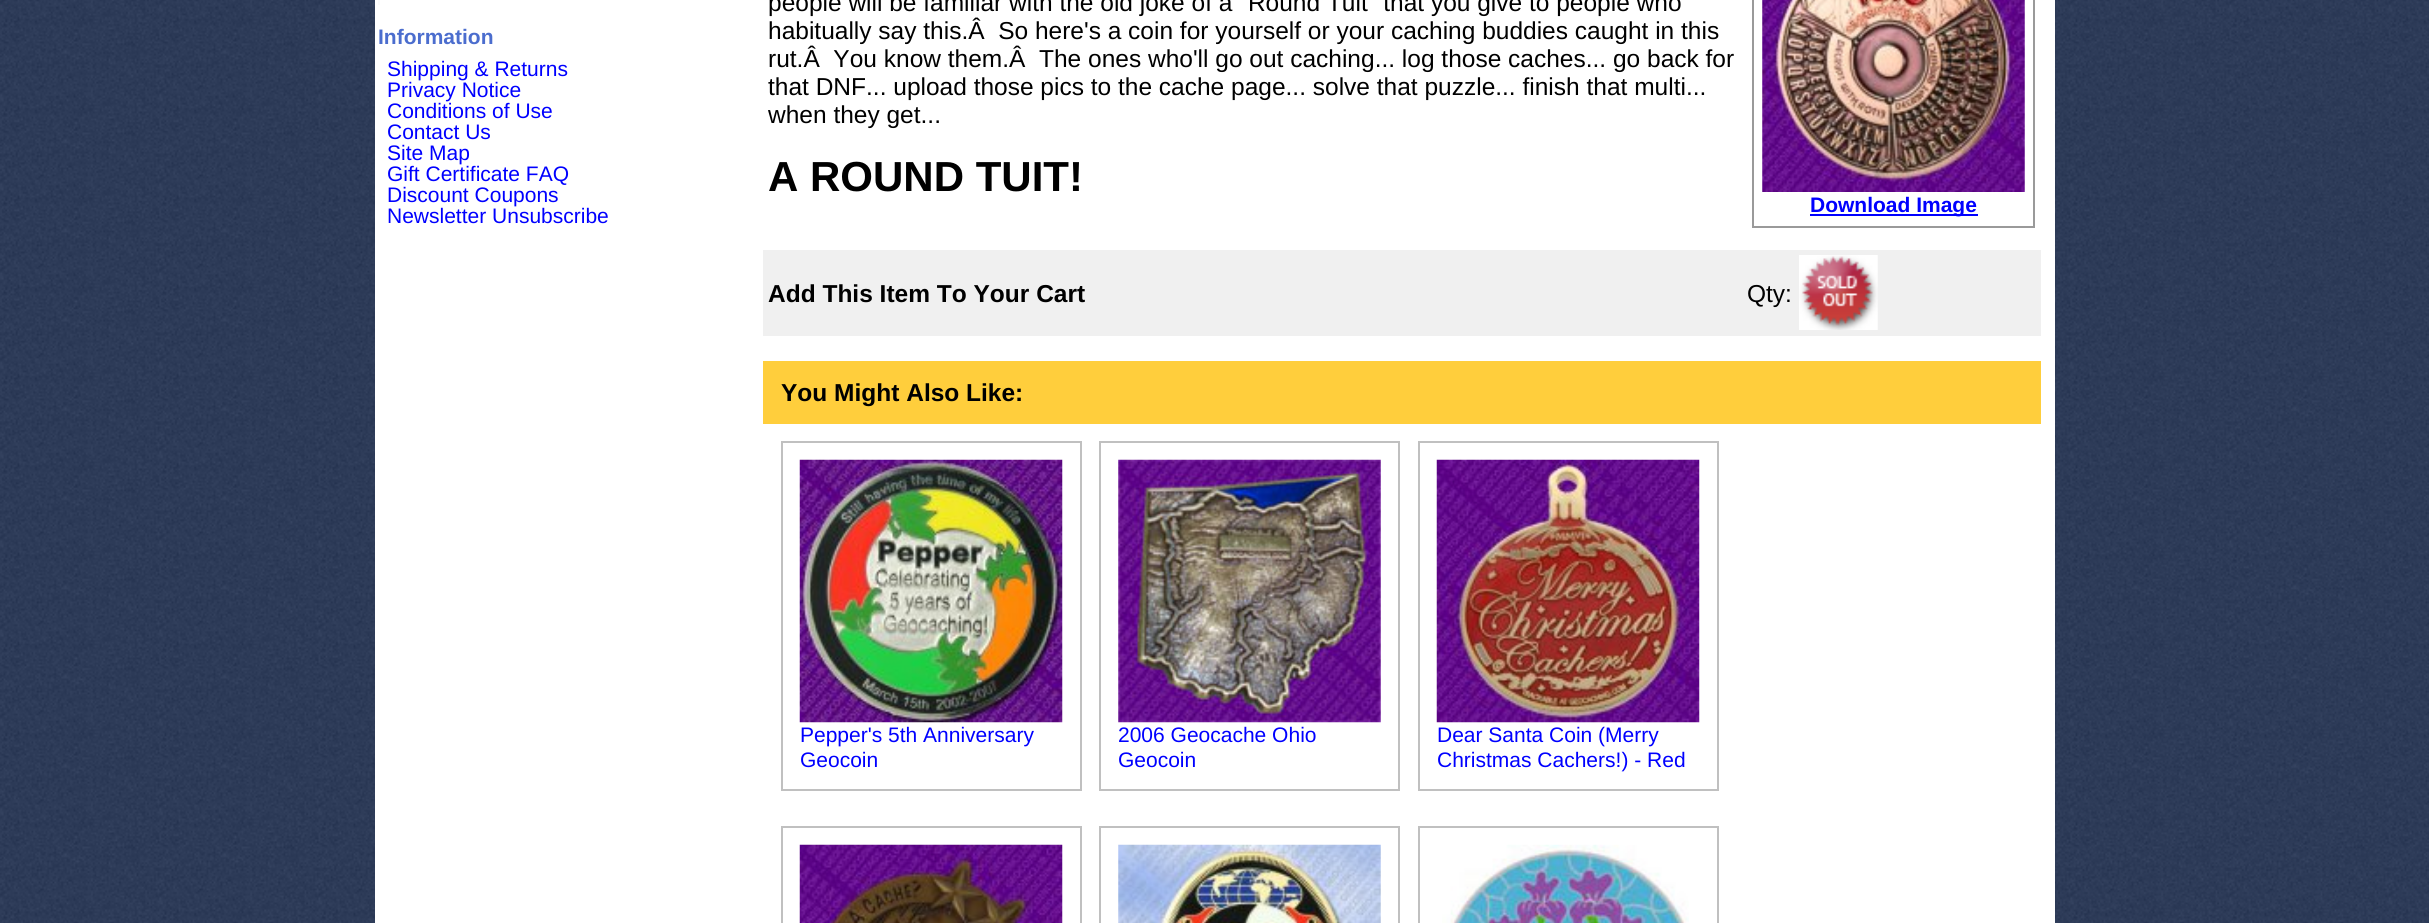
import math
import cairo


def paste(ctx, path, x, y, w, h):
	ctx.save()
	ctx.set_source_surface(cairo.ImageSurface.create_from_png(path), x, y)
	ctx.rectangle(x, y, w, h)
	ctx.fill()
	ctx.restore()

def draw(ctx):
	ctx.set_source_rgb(1, 1, 1)
	ctx.paint()
	paste(ctx, 'media/1.png', 0, 0, 2429, 923)
	ctx.set_source_rgb(1, 1, 1)
	ctx.rectangle(375, 0, 1680, 923)
	ctx.fill()
	ctx.set_source_rgb(0.98, 0.98, 0.98)
	ctx.rectangle(378, 0, 2, 5)
	ctx.fill()
	ctx.select_font_face('Liberation Sans', cairo.FONT_SLANT_NORMAL, cairo.FONT_WEIGHT_BOLD)
	ctx.set_font_size(21)
	ctx.set_source_rgb(0.294, 0.427, 0.808)
	ctx.move_to(378, 44)
	ctx.show_text('Information')
	ctx.select_font_face('Liberation Sans')
	ctx.set_source_rgb(0, 0, 1)
	for x, y, s in [
		(387, 76, 'Shipping & Returns'),
		(387, 97, 'Privacy Notice'),
		(387, 118, 'Conditions of Use'),
		(387, 139, 'Contact Us'),
		(387, 160, 'Site Map'),
		(387, 181, 'Gift Certificate FAQ'),
		(387, 202, 'Discount Coupons'),
		(387, 223, 'Newsletter Unsubscribe'),
	]:
		ctx.move_to(x, y)
		ctx.show_text(s)
	ctx.set_font_size(24.5)
	ctx.set_source_rgb(0, 0, 0)
	for x, y, s in [
		(768, 11, 'people will be familiar with the old joke of a "Round Tuit" that you give to people who'),
		(768, 39, 'habitually say this.Â  So here\'s a coin for yourself or your caching buddies caught in this'),
		(768, 67, 'rut.Â  You know them.Â  The ones who\'ll go out caching... log those caches... go back for'),
		(768, 95, 'that DNF... upload those pics to the cache page... solve that puzzle... finish that multi...'),
		(768, 123, 'when they get...'),
	]:
		ctx.move_to(x, y)
		ctx.show_text(s)
	ctx.select_font_face('Liberation Sans', cairo.FONT_SLANT_NORMAL, cairo.FONT_WEIGHT_BOLD)
	ctx.set_font_size(42)
	ctx.move_to(768, 191)
	ctx.show_text('A ROUND TUIT!')
	ctx.rectangle(1753, -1, 281, 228)
	ctx.set_source_rgb(0.604, 0.604, 0.604)
	ctx.stroke()
	paste(ctx, 'media/2.png', 1762, 0, 263, 192)
	ctx.set_source_rgb(0, 0, 1)
	ctx.rectangle(1810, 214, 168, 2)
	ctx.fill()
	ctx.set_font_size(21)
	ctx.move_to(1810, 212)
	ctx.show_text('Download Image')
	ctx.set_source_rgb(0.941, 0.941, 0.941)
	ctx.rectangle(763, 250, 1278, 86)
	ctx.fill()
	ctx.set_font_size(24.5)
	ctx.set_source_rgb(0, 0, 0)
	ctx.move_to(768, 302)
	ctx.show_text('Add This Item To Your Cart')
	ctx.select_font_face('Liberation Sans')
	ctx.move_to(1747, 302)
	ctx.show_text('Qty:')
	paste(ctx, 'media/3.png', 1799, 255, 79, 75)
	ctx.set_source_rgb(1, 0.808, 0.235)
	ctx.rectangle(763, 361, 1278, 63)
	ctx.fill()
	ctx.select_font_face('Liberation Sans', cairo.FONT_SLANT_NORMAL, cairo.FONT_WEIGHT_BOLD)
	ctx.set_source_rgb(0, 0, 0)
	ctx.move_to(781, 401)
	ctx.show_text('You Might Also Like:')
	ctx.rectangle(782, 442, 299, 348)
	ctx.set_source_rgb(0.753, 0.753, 0.753)
	ctx.stroke()
	paste(ctx, 'media/4.png', 799, 459, 264, 264)
	ctx.select_font_face('Liberation Sans')
	ctx.set_font_size(21)
	ctx.set_source_rgb(0, 0, 1)
	ctx.move_to(800, 742)
	ctx.show_text('Pepper\'s 5th Anniversary')
	ctx.move_to(800, 767)
	ctx.show_text('Geocoin')
	ctx.rectangle(1100, 442, 299, 348)
	ctx.set_source_rgb(0.753, 0.753, 0.753)
	ctx.stroke()
	paste(ctx, 'media/5.png', 1118, 459, 263, 264)
	ctx.set_source_rgb(0, 0, 1)
	ctx.move_to(1118, 742)
	ctx.show_text('2006 Geocache Ohio')
	ctx.move_to(1118, 767)
	ctx.show_text('Geocoin')
	ctx.rectangle(1419, 442, 299, 348)
	ctx.set_source_rgb(0.753, 0.753, 0.753)
	ctx.stroke()
	paste(ctx, 'media/6.png', 1436, 459, 264, 264)
	ctx.set_source_rgb(0, 0, 1)
	ctx.move_to(1437, 742)
	ctx.show_text('Dear Santa Coin (Merry')
	ctx.move_to(1437, 767)
	ctx.show_text('Christmas Cachers!) - Red')
	ctx.rectangle(782, 827, 299, 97)
	ctx.set_source_rgb(0.753, 0.753, 0.753)
	ctx.stroke()
	paste(ctx, 'media/7.png', 799, 844, 264, 79)
	ctx.rectangle(1100, 827, 299, 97)
	ctx.stroke()
	paste(ctx, 'media/8.png', 1118, 844, 263, 79)
	ctx.rectangle(1419, 827, 299, 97)
	ctx.stroke()
	paste(ctx, 'media/9.png', 1442, 844, 247, 79)


surface = cairo.ImageSurface(cairo.FORMAT_RGB24, 2429, 923)
ctx = cairo.Context(surface)
options = cairo.FontOptions()
options.set_hint_metrics(cairo.HINT_METRICS_OFF)
options.set_hint_style(cairo.HINT_STYLE_NONE)
ctx.set_font_options(options)
ctx.set_miter_limit(4)
draw(ctx)
surface.write_to_png('image.png')
